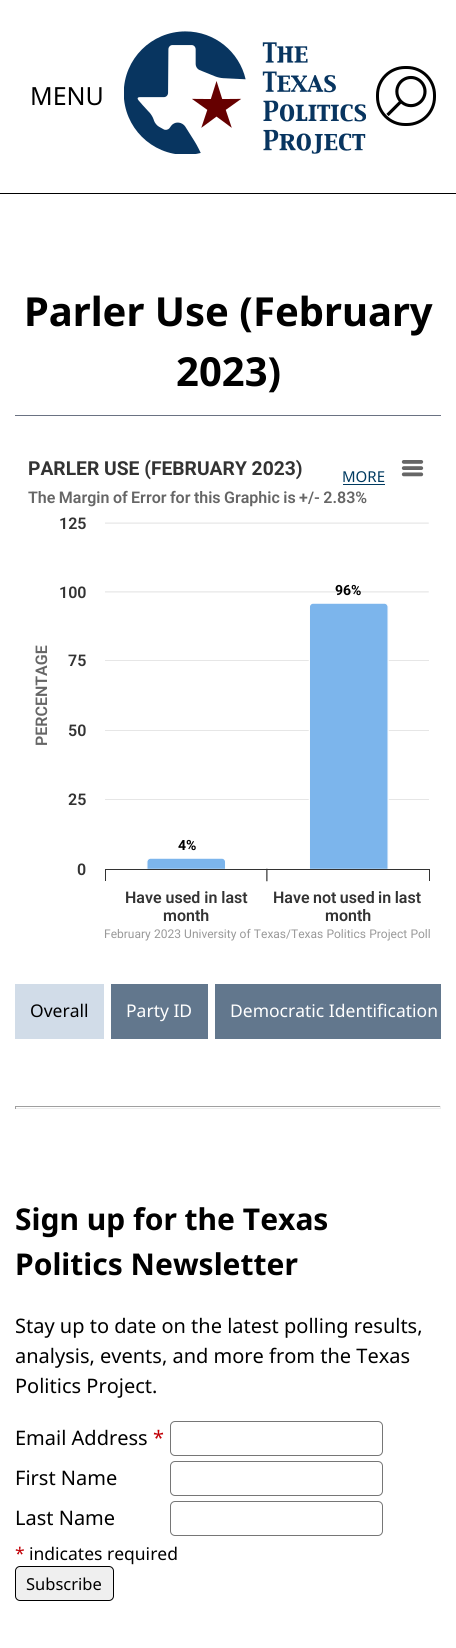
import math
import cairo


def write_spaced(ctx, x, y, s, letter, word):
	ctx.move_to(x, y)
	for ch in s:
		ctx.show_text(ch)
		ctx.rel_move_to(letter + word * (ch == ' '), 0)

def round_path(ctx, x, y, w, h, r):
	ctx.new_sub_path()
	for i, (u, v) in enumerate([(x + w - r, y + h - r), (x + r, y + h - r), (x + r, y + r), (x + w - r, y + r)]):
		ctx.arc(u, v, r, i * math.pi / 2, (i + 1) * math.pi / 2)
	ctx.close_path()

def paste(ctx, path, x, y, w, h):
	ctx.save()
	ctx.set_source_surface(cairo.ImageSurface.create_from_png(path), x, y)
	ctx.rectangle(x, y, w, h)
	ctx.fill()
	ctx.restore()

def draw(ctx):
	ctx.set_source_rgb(1, 1, 1)
	ctx.paint()
	ctx.set_source_rgb(0, 0, 0)
	ctx.rectangle(0, 193, 456, 1)
	ctx.fill()
	ctx.select_font_face('Noto Sans')
	ctx.set_font_size(25)
	ctx.move_to(30, 105)
	ctx.show_text('MENU')
	paste(ctx, 'media/1.png', 124, 31, 242, 123)
	round_path(ctx, 377.5, 67.5, 57, 57, 27.5)
	ctx.set_line_width(3)
	ctx.stroke()
	paste(ctx, 'media/2.png', 386, 75, 41, 41)
	ctx.set_source_rgb(0.416, 0.447, 0.51)
	ctx.rectangle(15, 415, 426, 1)
	ctx.fill()
	ctx.select_font_face('Noto Sans', cairo.FONT_SLANT_NORMAL, cairo.FONT_WEIGHT_BOLD)
	ctx.set_font_size(40)
	ctx.set_source_rgb(0, 0, 0)
	ctx.move_to(24, 326)
	ctx.show_text('Parler Use (February')
	ctx.move_to(176, 386)
	ctx.show_text('2023)')
	paste(ctx, 'media/3.png', 105, 460, 325, 422)
	ctx.select_font_face('Roboto', cairo.FONT_SLANT_NORMAL, cairo.FONT_WEIGHT_BOLD)
	ctx.set_font_size(19.25)
	ctx.set_source_rgb(0.2, 0.2, 0.2)
	ctx.move_to(28, 475)
	ctx.show_text('PARLER USE (FEBRUARY 2023)')
	ctx.select_font_face('Roboto SemiBold')
	ctx.set_font_size(16)
	ctx.set_source_rgb(0.4, 0.4, 0.4)
	write_spaced(ctx, 28, 503, 'The Margin of Error for this Graphic is +/- 2.83%', 0, -0.5)
	ctx.set_source_rgb(0.2, 0.2, 0.2)
	ctx.move_to(59, 529)
	ctx.show_text('125')
	ctx.move_to(59, 598)
	ctx.show_text('100')
	ctx.select_font_face('Roboto', cairo.FONT_SLANT_NORMAL, cairo.FONT_WEIGHT_BOLD)
	ctx.set_font_size(14)
	ctx.set_source_rgb(0, 0, 0)
	ctx.move_to(335, 595)
	ctx.show_text('96%')
	ctx.select_font_face('Roboto SemiBold')
	ctx.set_font_size(16)
	ctx.set_source_rgb(0.4, 0.4, 0.4)
	ctx.save()
	ctx.translate(47, 746)
	ctx.rotate(-90 * math.pi / 180)
	ctx.move_to(0, 0)
	ctx.show_text('PERCENTAGE')
	ctx.restore()
	ctx.set_source_rgb(0.2, 0.2, 0.2)
	for x, y, s in [
		(68, 666, '75'),
		(68, 736, '50'),
		(68, 805, '25'),
	]:
		ctx.move_to(x, y)
		ctx.show_text(s)
	ctx.select_font_face('Roboto', cairo.FONT_SLANT_NORMAL, cairo.FONT_WEIGHT_BOLD)
	ctx.set_font_size(14)
	ctx.set_source_rgb(0, 0, 0)
	ctx.move_to(178, 850)
	ctx.show_text('4%')
	ctx.select_font_face('Roboto SemiBold')
	ctx.set_font_size(16)
	ctx.set_source_rgb(0.2, 0.2, 0.2)
	ctx.move_to(77, 875)
	ctx.show_text('0')
	ctx.move_to(125, 903)
	ctx.show_text('Have used in last')
	write_spaced(ctx, 273, 903, 'Have not used in last', 0, -0.5)
	ctx.move_to(163, 921)
	ctx.show_text('month')
	ctx.move_to(325, 921)
	ctx.show_text('month')
	ctx.select_font_face('Roboto')
	ctx.set_font_size(12)
	ctx.set_source_rgb(0.6, 0.6, 0.6)
	write_spaced(ctx, 104, 938, 'February 2023 University of Texas/Texas Politics Project Poll', 0, 0.25)
	ctx.select_font_face('Noto Sans')
	ctx.set_font_size(15)
	ctx.set_source_rgb(0, 0.227, 0.376)
	ctx.move_to(342, 482)
	ctx.show_text('MORE')
	ctx.rectangle(343, 484, 42, 1)
	ctx.fill()
	ctx.set_source_rgb(0.82, 0.863, 0.91)
	ctx.rectangle(15, 984, 89, 55)
	ctx.fill()
	ctx.set_font_size(17.5)
	ctx.set_source_rgb(0, 0, 0)
	ctx.move_to(30, 1017)
	ctx.show_text('Overall')
	ctx.set_source_rgb(0.384, 0.467, 0.553)
	ctx.rectangle(111, 984, 97, 55)
	ctx.fill()
	ctx.set_source_rgb(1, 1, 1)
	ctx.move_to(126, 1017)
	ctx.show_text('Party ID')
	ctx.set_source_rgb(0.384, 0.467, 0.553)
	ctx.rectangle(215, 984, 226, 55)
	ctx.fill()
	ctx.set_source_rgb(1, 1, 1)
	ctx.move_to(230, 1017)
	ctx.show_text('Democratic Identification')
	ctx.set_source_rgb(0.624, 0.624, 0.624)
	ctx.rectangle(15, 1106, 426, 1)
	ctx.fill()
	ctx.set_source_rgb(0.933, 0.933, 0.933)
	ctx.rectangle(440, 1106, 1, 3)
	ctx.rectangle(15, 1108, 426, 1)
	ctx.fill()
	ctx.set_source_rgb(0.624, 0.624, 0.624)
	ctx.rectangle(15, 1106, 1, 3)
	ctx.fill()
	ctx.select_font_face('Noto Sans', cairo.FONT_SLANT_NORMAL, cairo.FONT_WEIGHT_BOLD)
	ctx.set_font_size(30)
	ctx.set_source_rgb(0, 0, 0)
	ctx.move_to(15, 1230)
	ctx.show_text('Sign up for the Texas')
	ctx.move_to(15, 1275)
	ctx.show_text('Politics Newsletter')
	ctx.select_font_face('Noto Sans')
	ctx.set_font_size(20)
	for x, y, s in [
		(15, 1333, 'Stay up to date on the latest polling results,'),
		(15, 1363, 'analysis, events, and more from the Texas'),
		(15, 1393, 'Politics Project.'),
		(15, 1445, 'Email Address'),
	]:
		ctx.move_to(x, y)
		ctx.show_text(s)
	ctx.set_source_rgb(0.757, 0, 0.027)
	ctx.move_to(153, 1445)
	ctx.show_text('*')
	round_path(ctx, 170.5, 1421.5, 212, 34, 4.5)
	ctx.set_source_rgb(0.463, 0.463, 0.463)
	ctx.set_line_width(1)
	ctx.stroke()
	ctx.set_source_rgb(0, 0, 0)
	ctx.move_to(15, 1485)
	ctx.show_text('First Name')
	round_path(ctx, 170.5, 1461.5, 212, 34, 4.5)
	ctx.set_source_rgb(0.463, 0.463, 0.463)
	ctx.stroke()
	ctx.set_source_rgb(0, 0, 0)
	ctx.move_to(15, 1525)
	ctx.show_text('Last Name')
	round_path(ctx, 170.5, 1501.5, 212, 34, 4.5)
	ctx.set_source_rgb(0.463, 0.463, 0.463)
	ctx.stroke()
	ctx.set_font_size(17.5)
	ctx.set_source_rgb(0.757, 0, 0.027)
	ctx.move_to(15, 1560)
	ctx.show_text('*')
	ctx.set_source_rgb(0, 0, 0)
	ctx.move_to(29, 1560)
	ctx.show_text('indicates required')
	ctx.set_source_rgb(0.937, 0.937, 0.937)
	round_path(ctx, 15.5, 1566.5, 98, 34, 4.5)
	ctx.fill_preserve()
	ctx.set_source_rgb(0, 0, 0)
	ctx.stroke()
	ctx.set_font_size(16.5)
	ctx.move_to(26, 1590)
	ctx.show_text('Subscribe')


surface = cairo.ImageSurface(cairo.FORMAT_RGB24, 456, 1648)
ctx = cairo.Context(surface)
options = cairo.FontOptions()
options.set_hint_metrics(cairo.HINT_METRICS_OFF)
options.set_hint_style(cairo.HINT_STYLE_NONE)
ctx.set_font_options(options)
ctx.set_miter_limit(4)
draw(ctx)
surface.write_to_png('image.png')
